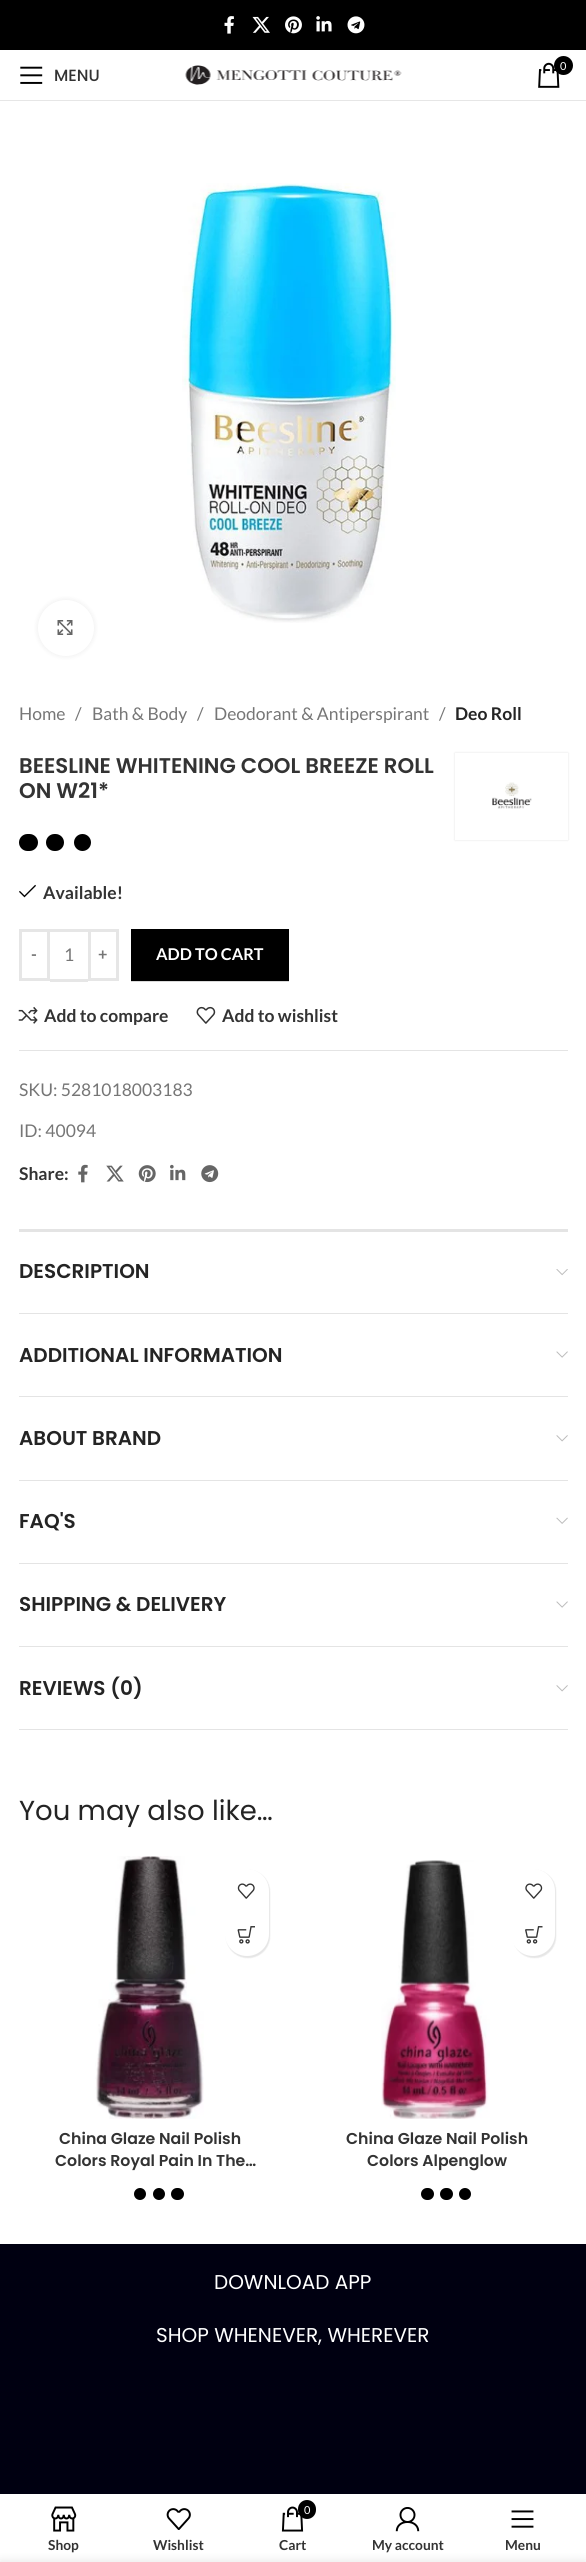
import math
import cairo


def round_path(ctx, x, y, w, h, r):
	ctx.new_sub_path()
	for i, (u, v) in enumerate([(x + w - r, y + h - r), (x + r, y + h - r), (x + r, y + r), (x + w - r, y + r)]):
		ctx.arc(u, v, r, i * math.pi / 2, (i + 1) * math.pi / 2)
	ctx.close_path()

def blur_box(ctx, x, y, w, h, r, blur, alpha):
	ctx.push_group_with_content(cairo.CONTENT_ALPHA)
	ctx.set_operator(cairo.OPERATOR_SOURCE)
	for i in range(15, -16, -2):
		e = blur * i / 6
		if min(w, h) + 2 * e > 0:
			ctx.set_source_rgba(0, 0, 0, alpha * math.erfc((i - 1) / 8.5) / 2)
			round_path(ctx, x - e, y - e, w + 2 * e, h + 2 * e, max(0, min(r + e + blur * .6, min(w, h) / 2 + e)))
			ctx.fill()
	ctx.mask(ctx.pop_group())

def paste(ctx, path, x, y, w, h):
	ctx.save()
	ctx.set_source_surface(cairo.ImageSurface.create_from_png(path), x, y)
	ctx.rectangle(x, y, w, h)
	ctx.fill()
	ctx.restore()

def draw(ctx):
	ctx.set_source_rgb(1, 1, 1)
	ctx.paint()
	ctx.set_source_rgb(0.851, 0.851, 0.851)
	ctx.rectangle(131, 981, 158, 1)
	ctx.fill()
	ctx.set_source_rgb(0, 0, 0)
	ctx.rectangle(0, 0, 586, 50)
	ctx.fill()
	paste(ctx, 'media/1.png', 224, 16, 10, 18)
	paste(ctx, 'media/2.png', 252, 16, 18, 17)
	paste(ctx, 'media/3.png', 285, 16, 17, 18)
	paste(ctx, 'media/4.png', 316, 16, 16, 16)
	paste(ctx, 'media/5.png', 347, 16, 18, 18)
	ctx.set_source_rgb(0.902, 0.902, 0.902)
	ctx.rectangle(0, 100, 586, 1)
	ctx.fill()
	paste(ctx, 'media/6.png', 20, 66, 23, 18)
	ctx.select_font_face('Poppins Medium')
	ctx.set_font_size(16.25)
	ctx.set_source_rgb(0.2, 0.2, 0.2)
	ctx.move_to(54, 81)
	ctx.show_text('MENU')
	paste(ctx, 'media/7.png', 185, 65, 217, 20)
	paste(ctx, 'media/8.png', 538, 62, 22, 26)
	ctx.set_source_rgb(0, 0, 0)
	ctx.arc(563.5, 65.5, 9.5, 0, 2 * math.pi)
	ctx.fill()
	ctx.select_font_face('Lato')
	ctx.set_font_size(11)
	ctx.set_source_rgb(1, 1, 1)
	ctx.move_to(560, 70)
	ctx.show_text('0')
	ctx.set_source_rgb(0, 0, 0)
	blur_box(ctx, 38, 600, 56, 56, 28, 3, 0.08)
	ctx.set_source_rgb(1, 1, 1)
	ctx.arc(66, 628, 28, 0, 2 * math.pi)
	ctx.fill()
	paste(ctx, 'media/9.png', 57, 620, 16, 15)
	paste(ctx, 'media/10.png', 182, 183, 214, 440)
	ctx.set_font_size(17.5)
	ctx.set_source_rgb(0.463, 0.463, 0.463)
	for x, y, s in [
		(19, 720, 'Home'),
		(75, 720, '/'),
		(92, 720, 'Bath & Body'),
		(197, 720, '/'),
		(214, 720, 'Deodorant & Antiperspirant'),
		(439, 720, '/'),
	]:
		ctx.move_to(x, y)
		ctx.show_text(s)
	ctx.select_font_face('Lato', cairo.FONT_SLANT_NORMAL, cairo.FONT_WEIGHT_BOLD)
	ctx.set_source_rgb(0.141, 0.141, 0.141)
	ctx.move_to(455, 720)
	ctx.show_text('Deo Roll')
	ctx.select_font_face('Poppins SemiBold')
	ctx.set_font_size(21.25)
	ctx.set_source_rgb(0.2, 0.2, 0.2)
	ctx.move_to(19, 773)
	ctx.show_text('BEESLINE WHITENING COOL BREEZE ROLL')
	ctx.move_to(19, 798)
	ctx.show_text('ON W21*')
	ctx.set_source_rgb(0, 0, 0)
	blur_box(ctx, 455, 753, 113, 87, 0, 1, 0.12)
	ctx.set_source_rgb(1, 1, 1)
	ctx.rectangle(455, 753, 113, 87)
	ctx.fill()
	paste(ctx, 'media/11.png', 492, 782, 40, 27)
	ctx.set_source_rgb(0, 0, 0)
	round_path(ctx, 46, 834, 18, 17, 8.5)
	ctx.fill()
	round_path(ctx, 19, 834, 19, 17, 8.5)
	ctx.fill()
	ctx.arc(82.5, 842.5, 8.5, 0, 2 * math.pi)
	ctx.fill()
	paste(ctx, 'media/12.png', 19, 884, 17, 14)
	ctx.select_font_face('Lato', cairo.FONT_SLANT_NORMAL, cairo.FONT_WEIGHT_BOLD)
	ctx.set_font_size(17.5)
	ctx.set_source_rgb(0.2, 0.2, 0.2)
	ctx.move_to(43, 899)
	ctx.show_text('Available!')
	ctx.rectangle(20.5, 930.5, 28, 49)
	ctx.set_source_rgb(0.902, 0.902, 0.902)
	ctx.set_line_width(3)
	ctx.stroke()
	ctx.set_font_size(16.25)
	ctx.set_source_rgb(0.463, 0.463, 0.463)
	ctx.move_to(31, 960)
	ctx.show_text('-')
	ctx.set_source_rgb(0.902, 0.902, 0.902)
	ctx.rectangle(50, 929, 38, 3)
	ctx.fill()
	ctx.rectangle(50, 979, 38, 3)
	ctx.fill()
	ctx.select_font_face('Lato')
	ctx.set_font_size(17.5)
	ctx.set_source_rgb(0.463, 0.463, 0.463)
	ctx.move_to(64, 961)
	ctx.show_text('1')
	ctx.rectangle(89.5, 930.5, 28, 49)
	ctx.set_source_rgb(0.902, 0.902, 0.902)
	ctx.stroke()
	ctx.select_font_face('Lato', cairo.FONT_SLANT_NORMAL, cairo.FONT_WEIGHT_BOLD)
	ctx.set_font_size(16.25)
	ctx.set_source_rgb(0.463, 0.463, 0.463)
	ctx.move_to(98, 960)
	ctx.show_text('+')
	ctx.set_source_rgb(0, 0, 0)
	ctx.rectangle(131, 929, 158, 52)
	ctx.fill()
	ctx.set_source_rgb(1, 1, 1)
	ctx.move_to(156, 960)
	ctx.show_text('ADD TO CART')
	paste(ctx, 'media/13.png', 18, 1006, 20, 18)
	ctx.set_font_size(17.5)
	ctx.set_source_rgb(0.2, 0.2, 0.2)
	ctx.move_to(44, 1022)
	ctx.show_text('Add to compare')
	paste(ctx, 'media/14.png', 196, 1006, 20, 18)
	ctx.move_to(222, 1022)
	ctx.show_text('Add to wishlist')
	ctx.set_source_rgb(0.894, 0.894, 0.894)
	ctx.rectangle(19, 1050, 549, 1)
	ctx.fill()
	ctx.select_font_face('Lato')
	ctx.set_source_rgb(0.463, 0.463, 0.463)
	ctx.move_to(19, 1096)
	ctx.show_text('SKU: 5281018003183')
	ctx.move_to(19, 1137)
	ctx.show_text('ID: 40094')
	ctx.select_font_face('Lato', cairo.FONT_SLANT_NORMAL, cairo.FONT_WEIGHT_BOLD)
	ctx.set_source_rgb(0.2, 0.2, 0.2)
	ctx.move_to(19, 1180)
	ctx.show_text('Share:')
	paste(ctx, 'media/15.png', 78, 1164, 10, 19)
	paste(ctx, 'media/16.png', 106, 1165, 18, 17)
	paste(ctx, 'media/17.png', 138, 1165, 18, 18)
	paste(ctx, 'media/18.png', 170, 1164, 16, 17)
	paste(ctx, 'media/19.png', 201, 1165, 18, 18)
	ctx.set_source_rgb(0.894, 0.894, 0.894)
	ctx.rectangle(19, 1229, 549, 3)
	ctx.fill()
	ctx.rectangle(19, 1313, 549, 1)
	ctx.fill()
	ctx.select_font_face('Poppins SemiBold')
	ctx.set_font_size(20)
	ctx.set_source_rgb(0.141, 0.141, 0.141)
	ctx.move_to(19, 1278)
	ctx.show_text('DESCRIPTION')
	paste(ctx, 'media/20.png', 556, 1269, 12, 7)
	ctx.set_source_rgb(0.894, 0.894, 0.894)
	ctx.rectangle(19, 1396, 549, 1)
	ctx.fill()
	ctx.set_source_rgb(0.141, 0.141, 0.141)
	ctx.move_to(19, 1362)
	ctx.show_text('ADDITIONAL INFORMATION')
	paste(ctx, 'media/21.png', 556, 1351, 12, 7)
	ctx.set_source_rgb(0.894, 0.894, 0.894)
	ctx.rectangle(19, 1480, 549, 1)
	ctx.fill()
	ctx.set_source_rgb(0.141, 0.141, 0.141)
	ctx.move_to(19, 1445)
	ctx.show_text('ABOUT BRAND')
	paste(ctx, 'media/22.png', 556, 1435, 12, 7)
	ctx.set_source_rgb(0.894, 0.894, 0.894)
	ctx.rectangle(19, 1563, 549, 1)
	ctx.fill()
	ctx.set_source_rgb(0.141, 0.141, 0.141)
	ctx.move_to(19, 1528)
	ctx.show_text('FAQ\'S')
	paste(ctx, 'media/23.png', 556, 1517, 12, 7)
	ctx.set_source_rgb(0.894, 0.894, 0.894)
	ctx.rectangle(19, 1646, 549, 1)
	ctx.fill()
	ctx.set_source_rgb(0.141, 0.141, 0.141)
	ctx.move_to(19, 1611)
	ctx.show_text('SHIPPING & DELIVERY')
	paste(ctx, 'media/21.png', 556, 1601, 12, 7)
	ctx.set_source_rgb(0.894, 0.894, 0.894)
	ctx.rectangle(19, 1729, 549, 1)
	ctx.fill()
	ctx.set_source_rgb(0.141, 0.141, 0.141)
	ctx.move_to(19, 1695)
	ctx.show_text('REVIEWS (0)')
	paste(ctx, 'media/22.png', 556, 1685, 12, 7)
	ctx.select_font_face('Poppins')
	ctx.set_font_size(27.5)
	ctx.move_to(19, 1820)
	ctx.show_text('You may also like…')
	paste(ctx, 'media/24.png', 95, 1856, 109, 263)
	ctx.set_source_rgb(0, 0, 0)
	blur_box(ctx, 226, 1870, 44, 88, 22, 0.5, 0.1)
	ctx.set_source_rgb(1, 1, 1)
	round_path(ctx, 225, 1869, 44, 87, 22)
	ctx.fill()
	paste(ctx, 'media/25.png', 237, 1883, 18, 16)
	paste(ctx, 'media/26.png', 237, 1926, 18, 18)
	ctx.select_font_face('Poppins SemiBold')
	ctx.set_font_size(15.75)
	ctx.set_source_rgb(0.2, 0.2, 0.2)
	ctx.move_to(59, 2144)
	ctx.show_text('China Glaze Nail Polish')
	ctx.move_to(55, 2166)
	ctx.show_text('Colors Royal Pain In The…')
	ctx.set_source_rgb(0, 0, 0)
	ctx.new_path()
	ctx.arc(159, 2194, 6, 0, 2 * math.pi)
	ctx.fill()
	ctx.arc(140, 2194, 6, 0, 2 * math.pi)
	ctx.fill()
	round_path(ctx, 171, 2188, 13, 12, 6)
	ctx.fill()
	paste(ctx, 'media/27.png', 381, 1860, 109, 259)
	ctx.set_source_rgb(0, 0, 0)
	blur_box(ctx, 513, 1870, 43, 88, 21.5, 0.5, 0.1)
	ctx.set_source_rgb(1, 1, 1)
	round_path(ctx, 511, 1869, 44, 87, 22)
	ctx.fill()
	paste(ctx, 'media/28.png', 525, 1883, 18, 16)
	paste(ctx, 'media/29.png', 525, 1926, 18, 18)
	ctx.set_source_rgb(0.2, 0.2, 0.2)
	ctx.move_to(346, 2144)
	ctx.show_text('China Glaze Nail Polish')
	ctx.move_to(367, 2166)
	ctx.show_text('Colors Alpenglow')
	ctx.set_source_rgb(0, 0, 0)
	round_path(ctx, 440, 2188, 13, 12, 6)
	ctx.fill()
	round_path(ctx, 421, 2188, 13, 12, 6)
	ctx.fill()
	ctx.arc(465, 2194, 6, 0, 2 * math.pi)
	ctx.fill()
	ctx.set_source_rgb(0, 0, 0.067)
	ctx.rectangle(0, 2244, 586, 250)
	ctx.fill()
	ctx.select_font_face('Poppins')
	ctx.set_font_size(20)
	ctx.set_source_rgb(1, 1, 1)
	ctx.move_to(214, 2289)
	ctx.show_text('DOWNLOAD APP')
	ctx.move_to(156, 2342)
	ctx.show_text('SHOP WHENEVER, WHEREVER')
	paste(ctx, 'media/30.png', 51, 2506, 26, 26)
	ctx.select_font_face('Lato', cairo.FONT_SLANT_NORMAL, cairo.FONT_WEIGHT_BOLD)
	ctx.set_font_size(13.75)
	ctx.set_source_rgb(0.2, 0.2, 0.2)
	ctx.move_to(48, 2550)
	ctx.show_text('Shop')
	paste(ctx, 'media/31.png', 166, 2508, 25, 22)
	ctx.move_to(153, 2550)
	ctx.show_text('Wishlist')
	paste(ctx, 'media/32.png', 281, 2506, 23, 26)
	ctx.set_source_rgb(0, 0, 0)
	round_path(ctx, 298, 2500, 18, 19, 9)
	ctx.fill()
	ctx.select_font_face('Lato')
	ctx.set_font_size(11)
	ctx.set_source_rgb(1, 1, 1)
	ctx.move_to(304, 2514)
	ctx.show_text('0')
	ctx.select_font_face('Lato', cairo.FONT_SLANT_NORMAL, cairo.FONT_WEIGHT_BOLD)
	ctx.set_font_size(13.75)
	ctx.set_source_rgb(0.2, 0.2, 0.2)
	ctx.move_to(279, 2550)
	ctx.show_text('Cart')
	paste(ctx, 'media/33.png', 395, 2507, 25, 25)
	ctx.move_to(372, 2550)
	ctx.show_text('My account')
	paste(ctx, 'media/34.png', 511, 2510, 23, 18)
	ctx.move_to(505, 2550)
	ctx.show_text('Menu')
	ctx.set_source_rgb(0, 0, 0)
	blur_box(ctx, 0, 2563, 586, 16, 0, 5.5, 0.14)


surface = cairo.ImageSurface(cairo.FORMAT_RGB24, 586, 2562)
ctx = cairo.Context(surface)
options = cairo.FontOptions()
options.set_hint_metrics(cairo.HINT_METRICS_OFF)
options.set_hint_style(cairo.HINT_STYLE_NONE)
ctx.set_font_options(options)
ctx.set_miter_limit(4)
draw(ctx)
surface.write_to_png('image.png')
